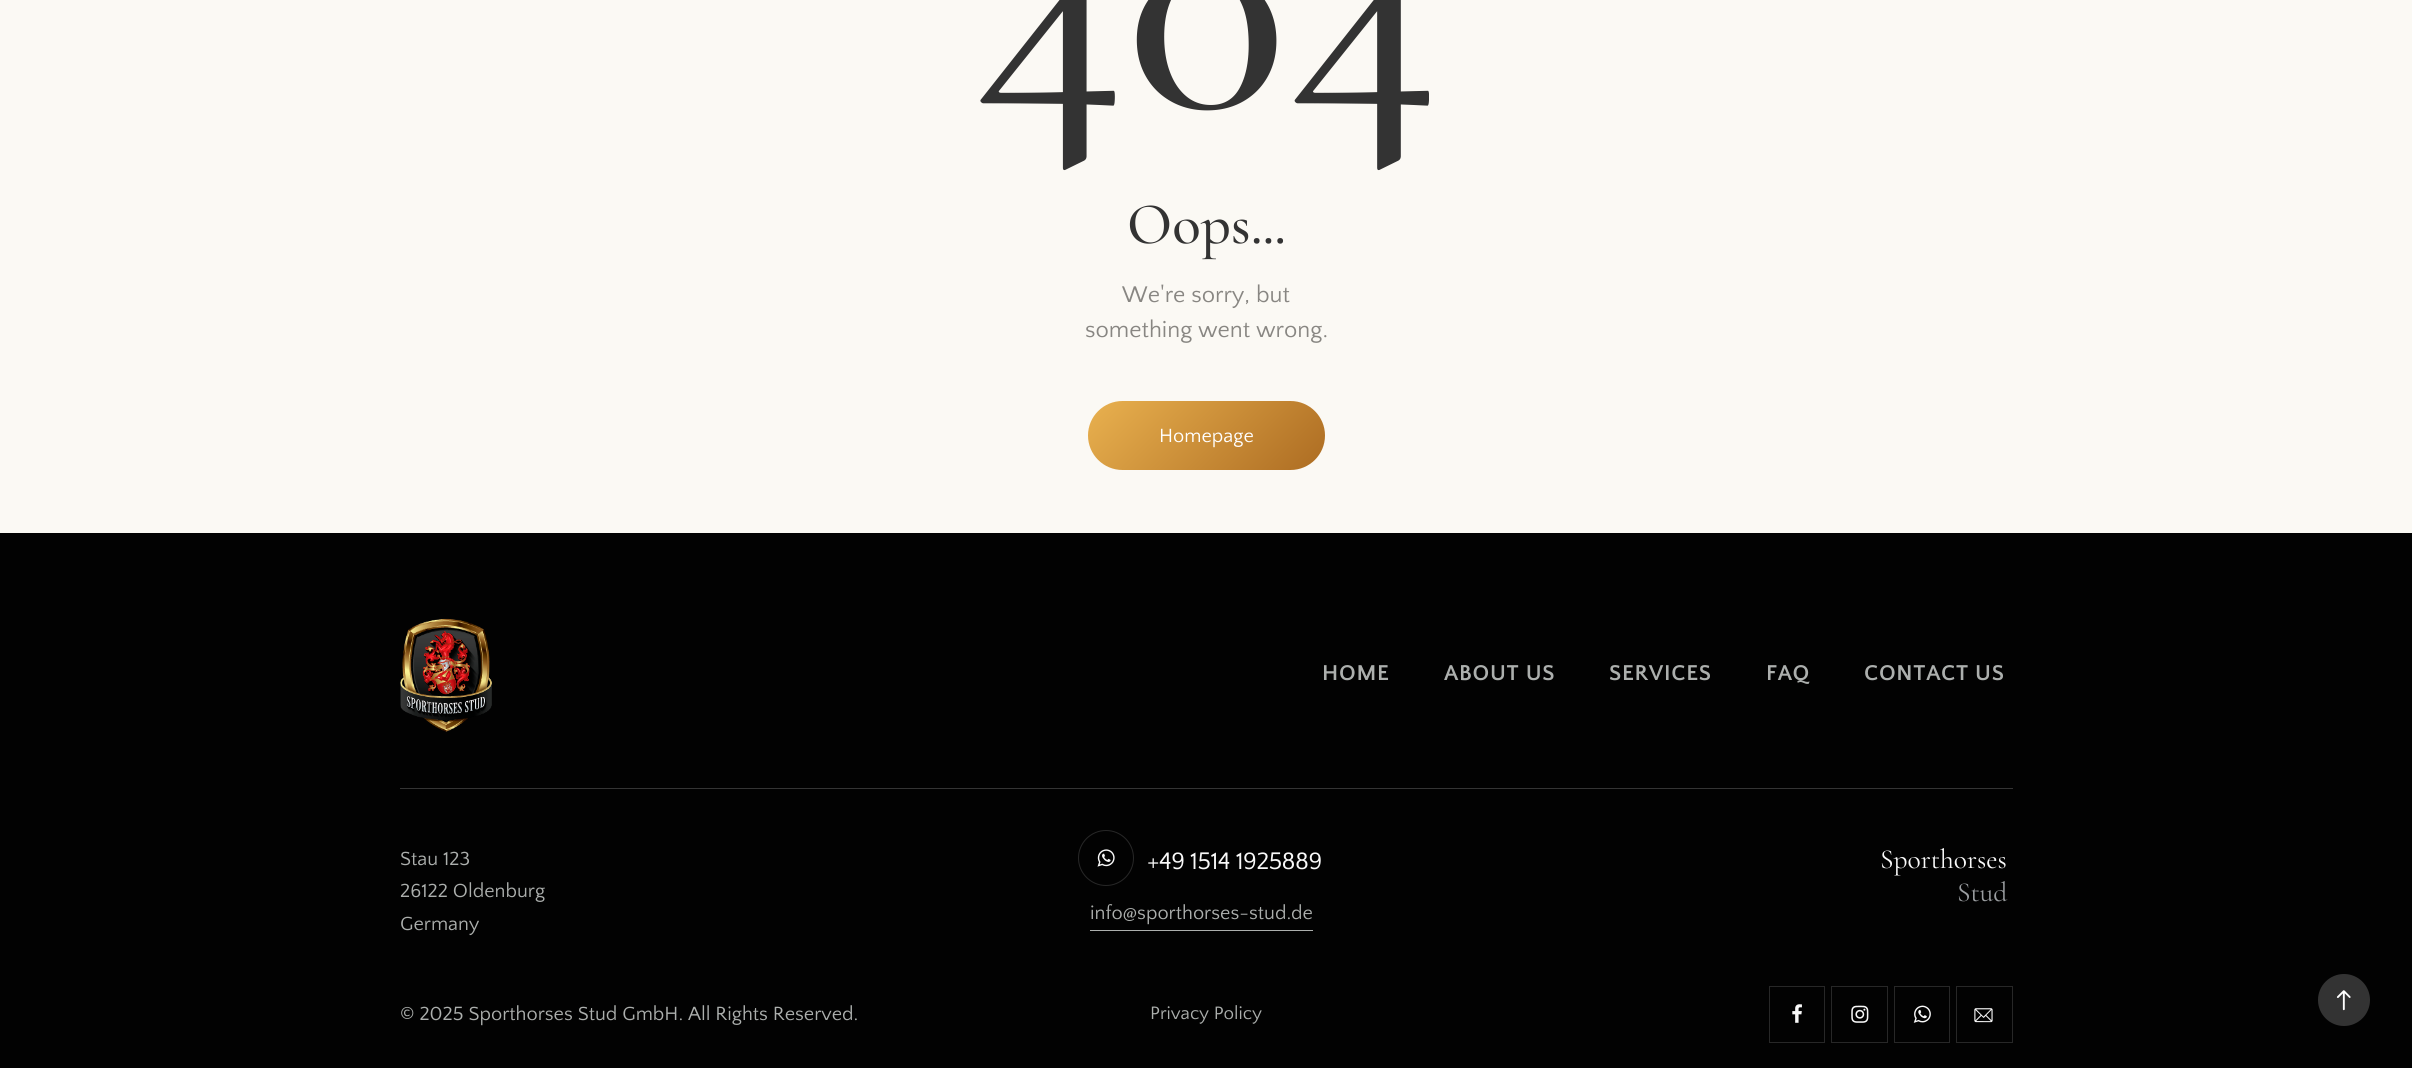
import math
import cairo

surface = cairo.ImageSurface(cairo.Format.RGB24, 2412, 1068)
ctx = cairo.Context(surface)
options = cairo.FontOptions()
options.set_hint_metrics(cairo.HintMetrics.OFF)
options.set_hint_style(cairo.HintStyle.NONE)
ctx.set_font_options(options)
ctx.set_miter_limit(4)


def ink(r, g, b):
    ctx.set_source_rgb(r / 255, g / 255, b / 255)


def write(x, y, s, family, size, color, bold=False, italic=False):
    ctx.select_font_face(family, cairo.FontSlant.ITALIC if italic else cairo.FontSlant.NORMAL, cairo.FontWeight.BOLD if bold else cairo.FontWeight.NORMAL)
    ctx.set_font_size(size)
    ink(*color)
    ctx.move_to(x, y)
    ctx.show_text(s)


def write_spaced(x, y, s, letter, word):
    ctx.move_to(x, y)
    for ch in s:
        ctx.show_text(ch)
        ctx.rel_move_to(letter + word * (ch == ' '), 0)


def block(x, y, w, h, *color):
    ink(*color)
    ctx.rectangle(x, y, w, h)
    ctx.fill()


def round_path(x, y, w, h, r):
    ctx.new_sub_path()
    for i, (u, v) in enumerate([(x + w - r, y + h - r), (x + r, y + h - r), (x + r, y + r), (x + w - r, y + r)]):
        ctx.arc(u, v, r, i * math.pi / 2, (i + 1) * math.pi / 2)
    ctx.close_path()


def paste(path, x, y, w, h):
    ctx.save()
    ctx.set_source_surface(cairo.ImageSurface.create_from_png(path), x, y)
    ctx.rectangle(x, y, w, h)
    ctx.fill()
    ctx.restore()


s1 = dict(family="Cormorant Garamond Medium", size=338, color=(51, 51, 51))
s2 = dict(family="Cormorant Garamond Medium", size=59, color=(51, 51, 51))
s3 = dict(family="Quattrocento Sans", size=23.75, color=(136, 134, 130))
s4 = dict(family="Quattrocento Sans", size=20, color=(255, 255, 255))
s5 = dict(family="Quattrocento Sans", size=20, color=(172, 175, 173))
s6 = dict(family="Cormorant Garamond", size=27.5, color=(249, 249, 249))
s7 = dict(family="Cormorant Garamond", size=27.5, color=(154, 157, 160))
s8 = dict(family="Quattrocento Sans", size=18.75, color=(172, 175, 173))

ink(251, 249, 244)
ctx.paint()
write(973, 106, "404", **s1)
write(1127, 243, "Oops...", **s2)
write(1122, 302, "We're sorry, but", **s3)
write(1085, 337, "something went wrong.", **s3)
gradient = cairo.LinearGradient(1130, 359, 1283, 512)
gradient.add_color_stop_rgba(0, 0.914, 0.694, 0.31, 1)
gradient.add_color_stop_rgba(1, 0.678, 0.424, 0.133, 1)
ctx.set_source(gradient)
round_path(1088, 401, 237, 69, 34.5)
ctx.fill()
write(1159, 442, "Homepage", **s4)
block(0, 533, 2412, 535, 2, 2, 2)
paste("pic1.png", 400, 618, 92, 114)
ctx.select_font_face("Quattrocento Sans", cairo.FontSlant.NORMAL, cairo.FontWeight.BOLD)
ctx.set_font_size(22.5)
ink(172, 175, 173)
write_spaced(1322, 680, "HOME", 0.75, 0)
write_spaced(1444, 680, "ABOUT US", 0.75, 0)
write_spaced(1609, 680, "SERVICES", 0.75, 0)
write_spaced(1766, 680, "FAQ", 0.75, 0)
write_spaced(1864, 680, "CONTACT US", 0.75, 0)
block(400, 788, 1613, 1, 52, 52, 52)
write(400, 865, "Stau 123", **s5)
write(400, 897, "26122 Oldenburg", **s5)
write(400, 930, "Germany", **s5)
ctx.new_path()
ctx.arc(1106, 858, 27.5, 0, 2 * math.pi)
ink(39, 39, 39)
ctx.set_line_width(1)
ctx.stroke()
paste("pic2.png", 1097, 849, 18, 18)
ctx.set_font_size(25)
ink(249, 249, 249)
write_spaced(1147, 869, "+49 1514 1925889", -0.5, 0)
write(1090, 919, "info@sporthorses-stud.de", **s5)
block(1090, 930, 223, 1, 172, 175, 173)
write(1880, 868, "Sporthorses", **s6)
write(1957, 901, "Stud", **s7)
write(400, 1020, "© 2025 Sporthorses Stud GmbH. All Rights Reserved.", **s5)
write(1150, 1019, "Privacy Policy", **s8)
ctx.rectangle(1769.5, 986.5, 55, 56)
ink(39, 39, 39)
ctx.stroke()
paste("pic3.png", 1792, 1004, 10, 19)
ctx.rectangle(1831.5, 986.5, 56, 56)
ctx.stroke()
paste("pic4.png", 1851, 1005, 18, 18)
ctx.rectangle(1894.5, 986.5, 55, 56)
ctx.stroke()
paste("pic5.png", 1913, 1005, 18, 18)
ctx.rectangle(1956.5, 986.5, 56, 56)
ctx.stroke()
paste("pic6.png", 1974, 1008, 19, 15)
ink(51, 51, 51)
ctx.arc(2344, 1000, 26, 0, 2 * math.pi)
ctx.fill()
paste("pic7.png", 2336, 990, 15, 21)
surface.write_to_png("screenshot.png")
